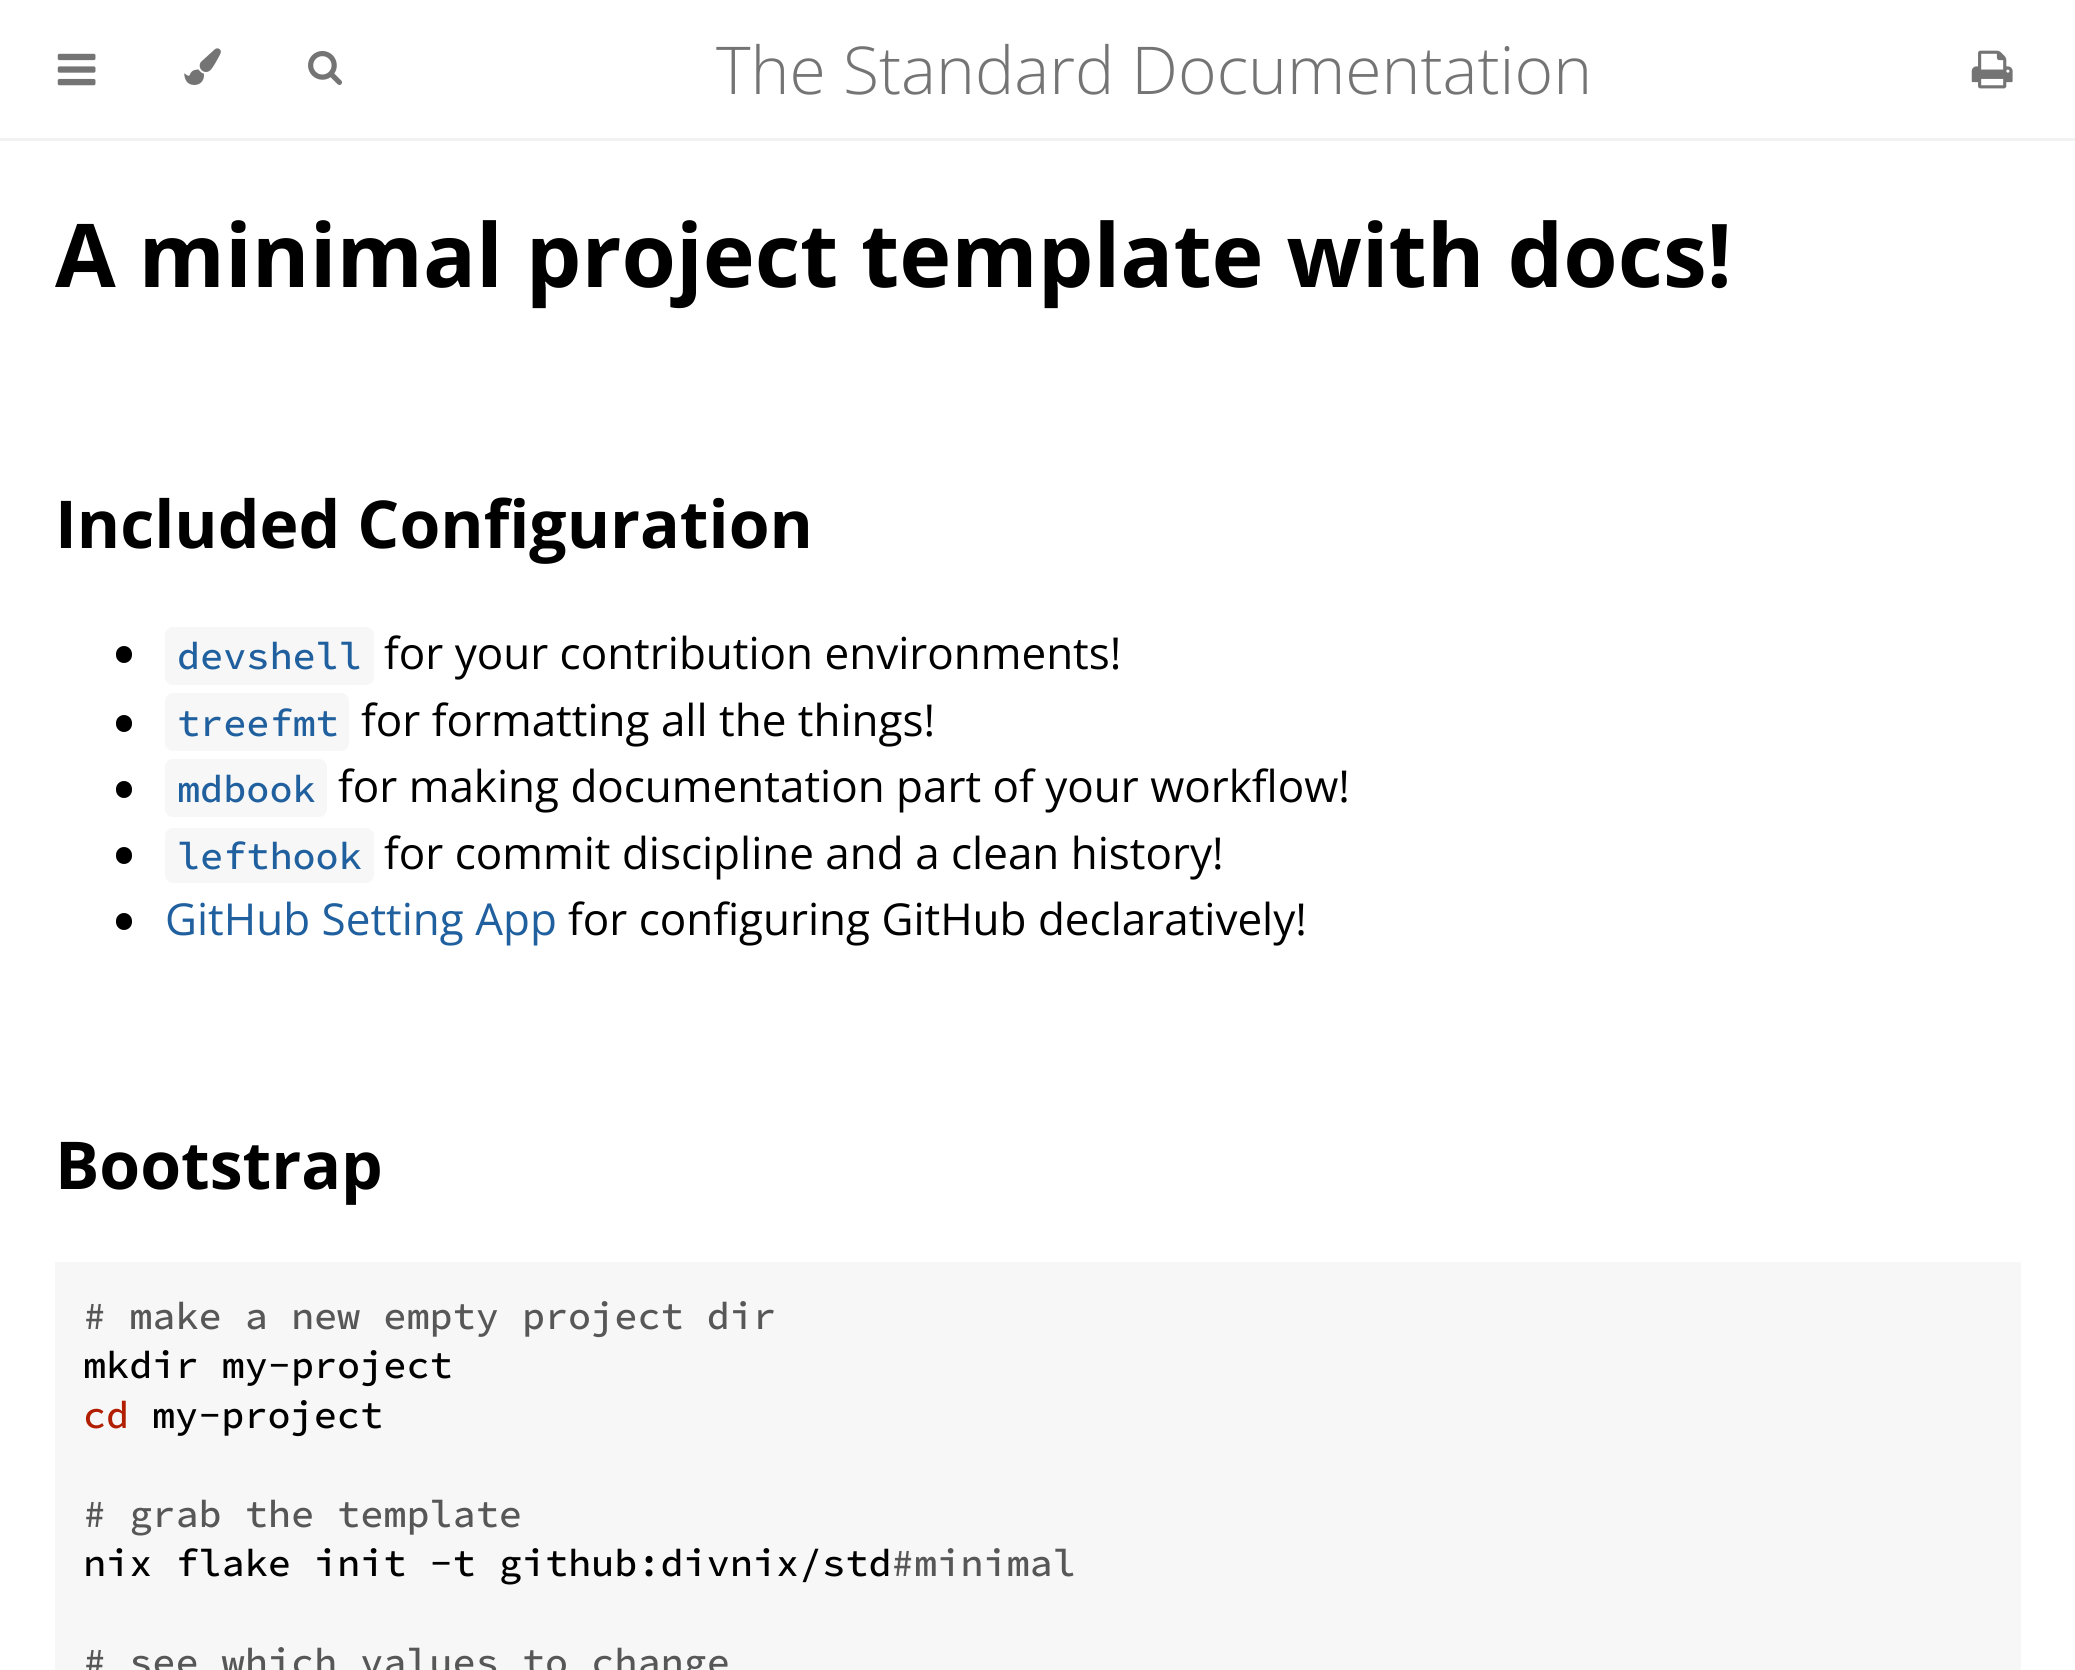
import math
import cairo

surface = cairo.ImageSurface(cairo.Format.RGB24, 2075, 1670)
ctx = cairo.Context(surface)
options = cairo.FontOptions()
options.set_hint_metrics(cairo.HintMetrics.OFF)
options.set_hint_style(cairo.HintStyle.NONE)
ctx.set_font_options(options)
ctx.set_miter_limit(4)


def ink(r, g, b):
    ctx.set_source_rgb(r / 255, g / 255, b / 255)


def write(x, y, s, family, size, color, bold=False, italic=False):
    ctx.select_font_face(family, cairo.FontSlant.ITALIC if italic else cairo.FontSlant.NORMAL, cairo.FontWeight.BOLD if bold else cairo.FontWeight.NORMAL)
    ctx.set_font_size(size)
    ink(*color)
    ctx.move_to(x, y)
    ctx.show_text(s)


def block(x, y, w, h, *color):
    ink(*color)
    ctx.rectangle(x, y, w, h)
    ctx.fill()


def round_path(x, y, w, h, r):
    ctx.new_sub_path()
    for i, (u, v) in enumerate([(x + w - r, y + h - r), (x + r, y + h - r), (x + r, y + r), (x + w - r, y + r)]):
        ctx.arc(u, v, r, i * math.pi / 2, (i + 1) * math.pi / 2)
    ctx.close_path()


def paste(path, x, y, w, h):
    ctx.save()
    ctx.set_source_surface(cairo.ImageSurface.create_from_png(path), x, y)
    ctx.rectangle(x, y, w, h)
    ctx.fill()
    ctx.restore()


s1 = dict(family="Open Sans Light", size=66, color=(116, 116, 116))
s2 = dict(family="Open Sans", size=88, color=(0, 0, 0), bold=True)
s3 = dict(family="Open Sans", size=66, color=(0, 0, 0), bold=True)
s4 = dict(family="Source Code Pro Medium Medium", size=38.5, color=(32, 96, 159))
s5 = dict(family="Open Sans", size=44, color=(0, 0, 0))
s6 = dict(family="Open Sans", size=44, color=(32, 96, 159))
s7 = dict(family="Source Code Pro Medium Medium", size=38.5, color=(87, 87, 87))
s8 = dict(family="Source Code Pro Medium Medium", size=38.5, color=(0, 0, 0))
s9 = dict(family="Source Code Pro Medium Medium", size=38.5, color=(178, 30, 0))

ink(255, 255, 255)
ctx.paint()
block(0, 138, 2075, 3, 242, 242, 242)
paste("pic1.png", 57, 53, 39, 33)
paste("pic2.png", 184, 48, 37, 37)
paste("pic3.png", 308, 50, 34, 35)
write(716, 94, "The Standard Documentation", **s1)
paste("pic4.png", 1971, 50, 42, 39)
write(55, 287, "A minimal project template with docs!", **s2)
write(55, 548, "Included Configuration", **s3)
round_path(116, 646, 16, 17, 8)
ctx.fill()
ink(246, 247, 246)
round_path(165, 627, 209, 58, 8)
ctx.fill()
write(177, 669, "devshell", **s4)
write(384, 669, "for your contribution environments!", **s5)
round_path(116, 715, 16, 17, 8)
ctx.fill()
ink(246, 247, 246)
round_path(165, 693, 184, 58, 8)
ctx.fill()
write(177, 736, "treefmt", **s4)
write(361, 736, "for formatting all the things!", **s5)
round_path(116, 781, 16, 17, 8)
ctx.fill()
ink(246, 247, 246)
round_path(165, 759, 162, 58, 8)
ctx.fill()
write(177, 802, "mdbook", **s4)
write(338, 802, "for making documentation part of your workflow!", **s5)
round_path(116, 847, 16, 17, 8)
ctx.fill()
ink(246, 247, 246)
round_path(165, 828, 209, 55, 8)
ctx.fill()
write(177, 869, "lefthook", **s4)
write(384, 869, "for commit discipline and a clean history!", **s5)
round_path(116, 913, 16, 17, 8)
ctx.fill()
write(165, 935, "GitHub Setting App", **s6)
write(568, 935, "for configuring GitHub declaratively!", **s5)
write(55, 1189, "Bootstrap", **s3)
block(55, 1262, 1966, 408, 246, 247, 246)
write(83, 1329, "# make a new empty project dir", **s7)
write(83, 1378, "mkdir my-project", **s8)
write(83, 1428, "cd", **s9)
write(152, 1428, "my-project", **s8)
write(83, 1527, "# grab the template", **s7)
write(83, 1576, "nix flake init -t github:divnix/std", **s8)
write(891, 1576, "#minimal", **s7)
write(83, 1675, "# see which values to change", **s7)
surface.write_to_png("screenshot.png")
